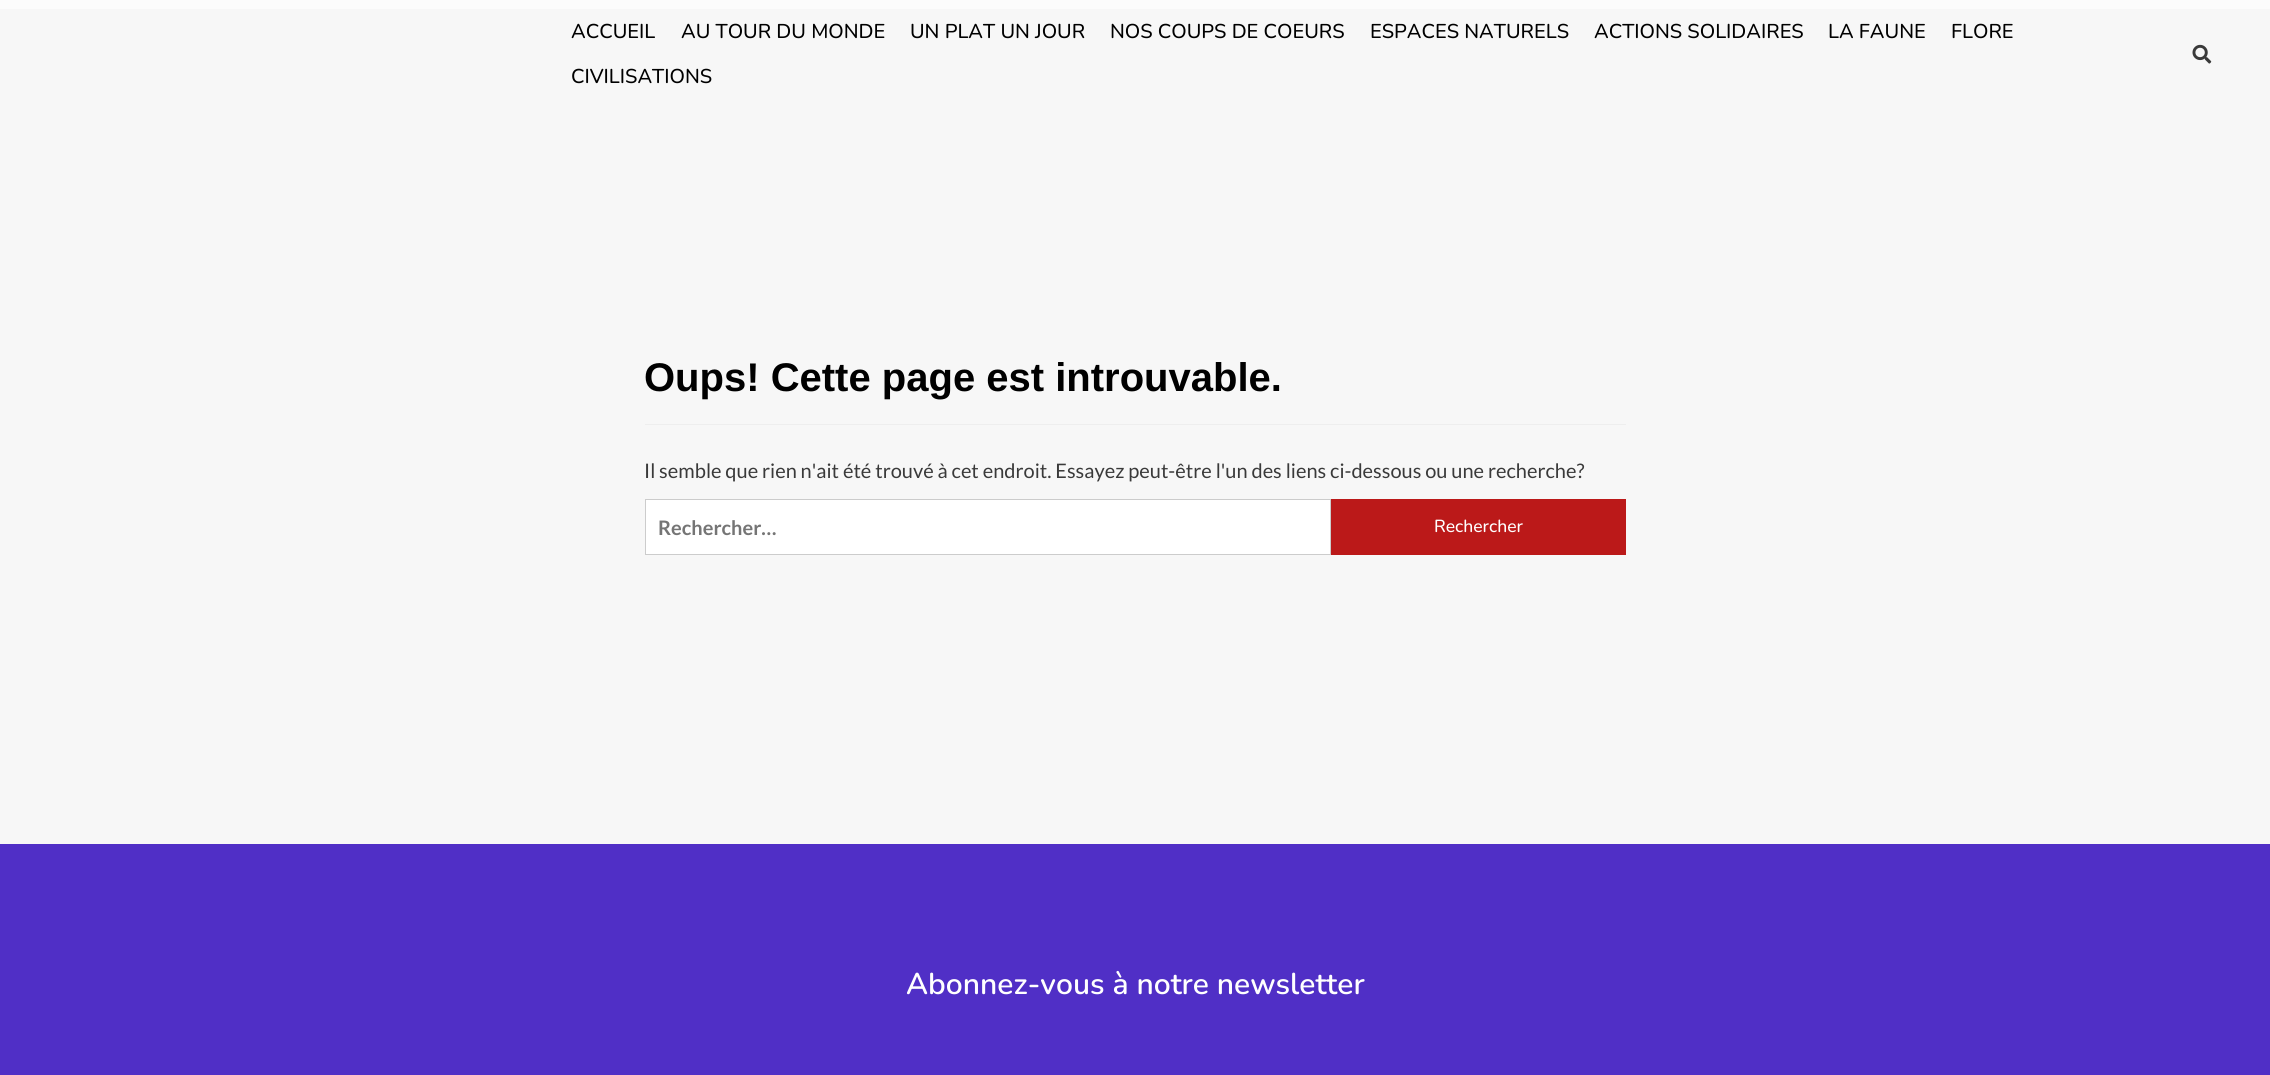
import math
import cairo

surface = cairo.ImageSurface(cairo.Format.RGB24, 2270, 1075)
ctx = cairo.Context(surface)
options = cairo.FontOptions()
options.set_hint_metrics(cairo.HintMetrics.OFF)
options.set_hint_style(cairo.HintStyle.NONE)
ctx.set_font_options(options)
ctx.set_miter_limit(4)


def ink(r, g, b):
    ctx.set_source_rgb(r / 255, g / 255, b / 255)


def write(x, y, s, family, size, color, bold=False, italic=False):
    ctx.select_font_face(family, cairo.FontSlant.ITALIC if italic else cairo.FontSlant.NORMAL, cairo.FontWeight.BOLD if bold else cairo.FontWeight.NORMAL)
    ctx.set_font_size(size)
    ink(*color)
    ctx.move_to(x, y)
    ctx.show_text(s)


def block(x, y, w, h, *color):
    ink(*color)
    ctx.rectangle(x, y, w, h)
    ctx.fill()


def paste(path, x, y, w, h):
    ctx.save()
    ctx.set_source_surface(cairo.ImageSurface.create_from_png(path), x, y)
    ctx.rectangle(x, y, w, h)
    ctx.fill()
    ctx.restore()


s1 = dict(family="Nunito Medium", size=20, color=(0, 0, 0))
s2 = dict(family="Liberation Sans", size=40, color=(0, 0, 0), bold=True)
s3 = dict(family="Lato", size=20, color=(58, 58, 58))
s4 = dict(family="Lato", size=20, color=(117, 117, 117), bold=True)
s5 = dict(family="Nunito Medium", size=17.5, color=(255, 255, 255))
s6 = dict(family="Nunito SemiBold", size=30, color=(255, 255, 255))

ink(247, 247, 247)
ctx.paint()
block(0, 0, 2270, 9, 252, 252, 252)
write(571, 38, "ACCUEIL", **s1)
write(681, 38, "AU TOUR DU MONDE", **s1)
write(910, 38, "UN PLAT UN JOUR", **s1)
write(1110, 38, "NOS COUPS DE COEURS", **s1)
write(1370, 38, "ESPACES NATURELS", **s1)
write(1594, 38, "ACTIONS SOLIDAIRES", **s1)
write(1828, 38, "LA FAUNE", **s1)
write(1951, 38, "FLORE", **s1)
write(571, 83, "CIVILISATIONS", **s1)
paste("pic1.png", 2192, 44, 20, 20)
block(645, 424, 981, 1, 238, 238, 238)
write(644, 391, "Oups! Cette page est introuvable.", **s2)
write(644, 478, "Il semble que rien n'ait été trouvé à cet endroit. Essayez peut-être l'un des liens ci-dessous ou une recherche?", **s3)
ink(255, 255, 255)
ctx.rectangle(645.5, 499.5, 685, 55)
ctx.fill_preserve()
ink(204, 204, 204)
ctx.set_line_width(1)
ctx.stroke()
write(658, 535, "Rechercher…", **s4)
block(1331, 499, 295, 56, 187, 25, 25)
write(1434, 532, "Rechercher", **s5)
block(0, 844, 2270, 231, 80, 47, 198)
write(906, 994, "Abonnez-vous à notre newsletter", **s6)
surface.write_to_png("screenshot.png")
